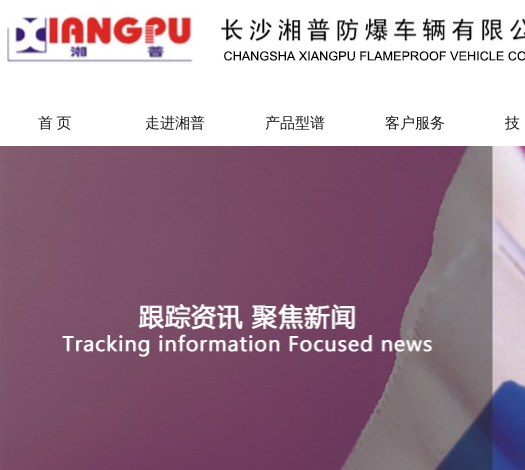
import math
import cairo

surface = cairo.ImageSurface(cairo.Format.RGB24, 525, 470)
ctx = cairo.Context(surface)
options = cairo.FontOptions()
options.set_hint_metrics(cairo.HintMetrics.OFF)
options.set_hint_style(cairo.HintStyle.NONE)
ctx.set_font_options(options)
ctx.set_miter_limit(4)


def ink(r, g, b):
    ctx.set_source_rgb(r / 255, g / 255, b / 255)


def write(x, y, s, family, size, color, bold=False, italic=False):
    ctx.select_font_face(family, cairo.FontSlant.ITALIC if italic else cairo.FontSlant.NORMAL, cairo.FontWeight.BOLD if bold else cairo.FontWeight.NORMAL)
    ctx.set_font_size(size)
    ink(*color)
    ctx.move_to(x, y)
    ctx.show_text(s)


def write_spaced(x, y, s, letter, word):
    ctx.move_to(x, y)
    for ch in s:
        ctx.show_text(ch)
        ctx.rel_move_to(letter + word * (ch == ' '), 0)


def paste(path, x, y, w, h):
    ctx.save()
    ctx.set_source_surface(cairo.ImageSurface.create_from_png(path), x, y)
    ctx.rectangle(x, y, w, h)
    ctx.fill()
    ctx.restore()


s1 = dict(family="WenQuanYi Zen Hei Medium", size=15, color=(25, 25, 25))

ink(255, 255, 255)
ctx.paint()
paste("pic1.png", 3, 11, 522, 53)
ctx.select_font_face("WenQuanYi Zen Hei Medium")
ctx.set_font_size(15)
ink(25, 25, 25)
write_spaced(38, 128, "首 页", 0, -1)
write(145, 128, "走进湘普", **s1)
write(265, 128, "产品型谱", **s1)
write(385, 128, "客户服务", **s1)
write(505, 128, "技", **s1)
paste("pic2.png", 0, 146, 525, 324)
surface.write_to_png("screenshot.png")
